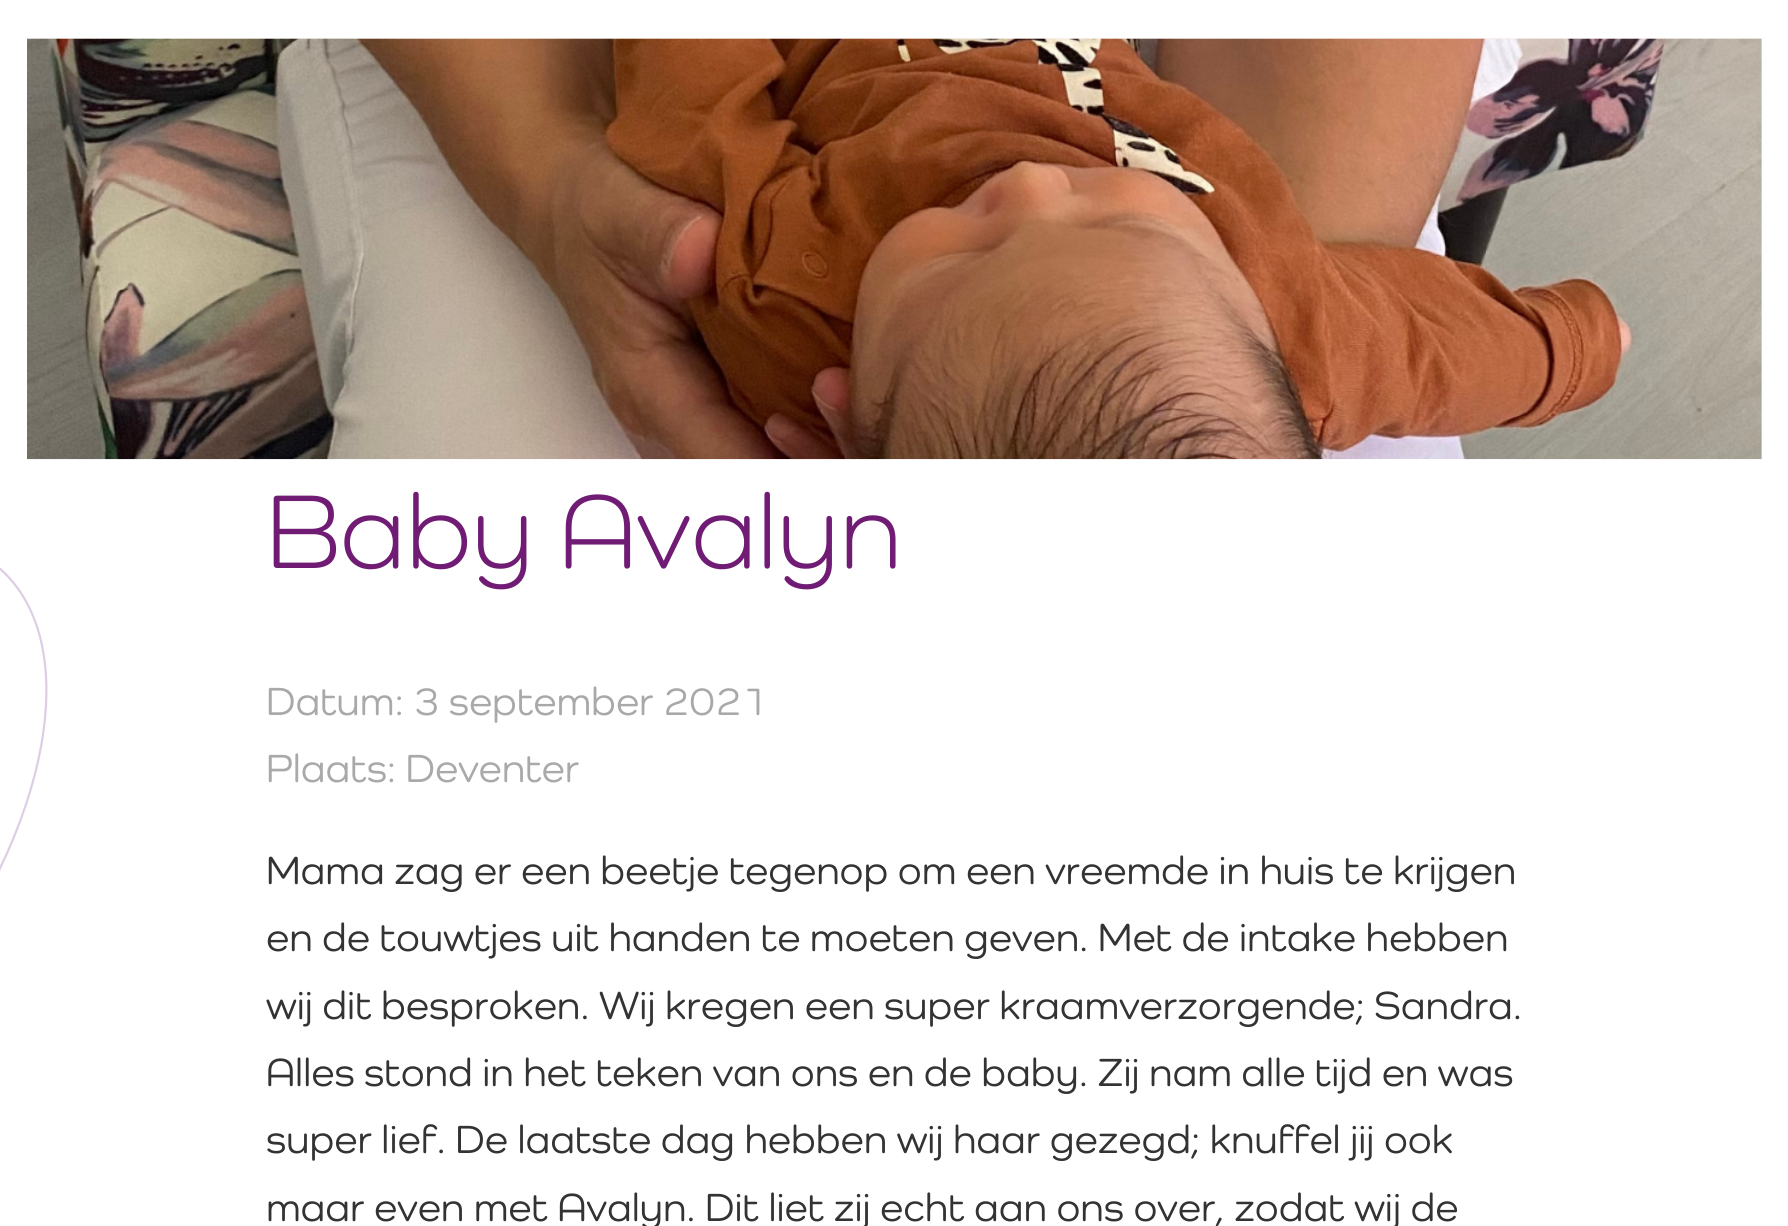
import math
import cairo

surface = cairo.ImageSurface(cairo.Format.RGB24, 1788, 1226)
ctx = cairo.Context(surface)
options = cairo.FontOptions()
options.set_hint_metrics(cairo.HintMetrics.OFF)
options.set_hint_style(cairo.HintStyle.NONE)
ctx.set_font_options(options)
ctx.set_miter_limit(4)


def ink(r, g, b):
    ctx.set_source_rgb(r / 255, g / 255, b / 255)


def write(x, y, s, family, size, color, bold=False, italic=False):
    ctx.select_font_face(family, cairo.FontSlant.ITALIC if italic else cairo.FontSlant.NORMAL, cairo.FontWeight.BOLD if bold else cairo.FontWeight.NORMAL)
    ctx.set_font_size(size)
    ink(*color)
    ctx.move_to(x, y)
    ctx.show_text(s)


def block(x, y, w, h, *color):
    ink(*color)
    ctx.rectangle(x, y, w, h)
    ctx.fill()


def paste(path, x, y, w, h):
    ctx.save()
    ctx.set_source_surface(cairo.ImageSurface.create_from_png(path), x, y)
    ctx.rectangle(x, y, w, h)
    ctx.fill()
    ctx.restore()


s1 = dict(family="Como", size=108, color=(112, 28, 116))
s2 = dict(family="Como Medium", size=40.5, color=(169, 169, 169))
s3 = dict(family="Como Medium", size=40.5, color=(51, 51, 51))

ink(255, 255, 255)
ctx.paint()
block(27, 38, 1735, 421, 247, 242, 237)
paste("pic1.png", 27, 38, 1735, 422)
write(266, 568, "Baby Avalyn", **s1)
ctx.new_path()
ctx.move_to(-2, 567)
ctx.curve_to(-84.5, 496.5, -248, 551, -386, 686.5)
ctx.curve_to(-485, 520, -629, 426.5, -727, 473.5)
ctx.curve_to(-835.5, 525.5, -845, 732, -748, 935)
ctx.curve_to(-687, 1062.5, -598.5, 1157.5, -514, 1198.5)
ctx.curve_to(-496.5, 1209, -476.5, 1215, -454.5, 1217.5)
ctx.curve_to(-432.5, 1221, -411.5, 1220, -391.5, 1214)
ctx.curve_to(-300, 1196, -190, 1126.5, -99, 1019)
ctx.curve_to(47, 847.5, 90, 645, -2, 567)
ctx.close_path()
ink(220, 206, 228)
ctx.set_line_width(2.2)
ctx.stroke()
write(266, 715, "Datum: 3 september 2021", **s2)
write(266, 782, "Plaats: Deventer", **s2)
write(266, 884, "Mama zag er een beetje tegenop om een vreemde in huis te krijgen", **s3)
write(266, 951, "en de touwtjes uit handen te moeten geven. Met de intake hebben", **s3)
write(266, 1019, "wij dit besproken. Wij kregen een super kraamverzorgende; Sandra.", **s3)
write(266, 1086, "Alles stond in het teken van ons en de baby. Zij nam alle tijd en was", **s3)
write(266, 1153, "super lief. De laatste dag hebben wij haar gezegd; knuffel jij ook", **s3)
write(266, 1221, "maar even met Avalyn. Dit liet zij echt aan ons over, zodat wij de", **s3)
surface.write_to_png("screenshot.png")
